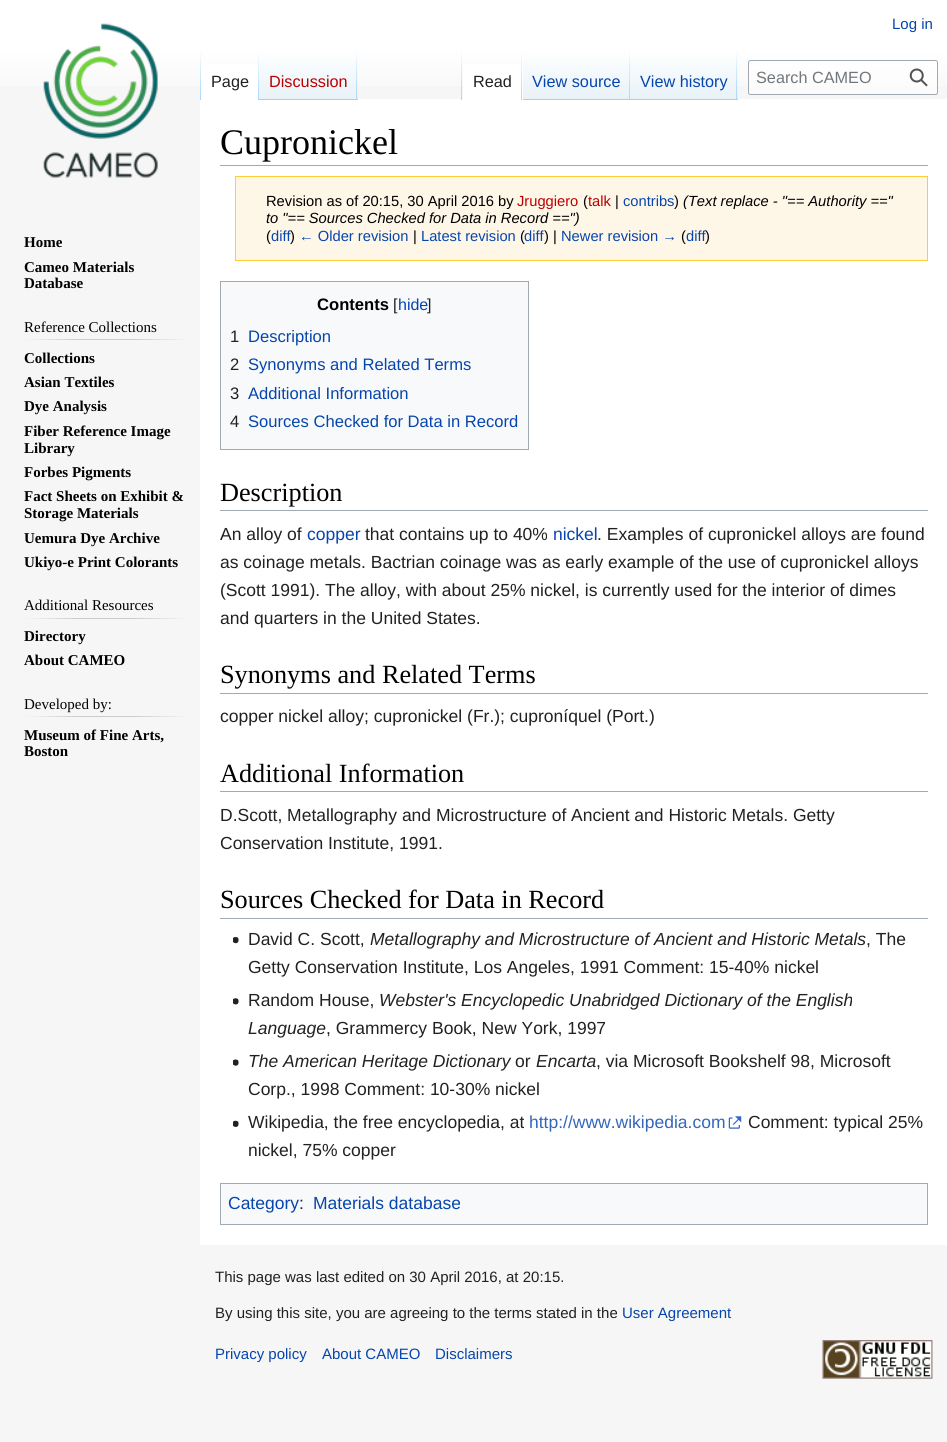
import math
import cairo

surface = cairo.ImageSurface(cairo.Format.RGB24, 947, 1442)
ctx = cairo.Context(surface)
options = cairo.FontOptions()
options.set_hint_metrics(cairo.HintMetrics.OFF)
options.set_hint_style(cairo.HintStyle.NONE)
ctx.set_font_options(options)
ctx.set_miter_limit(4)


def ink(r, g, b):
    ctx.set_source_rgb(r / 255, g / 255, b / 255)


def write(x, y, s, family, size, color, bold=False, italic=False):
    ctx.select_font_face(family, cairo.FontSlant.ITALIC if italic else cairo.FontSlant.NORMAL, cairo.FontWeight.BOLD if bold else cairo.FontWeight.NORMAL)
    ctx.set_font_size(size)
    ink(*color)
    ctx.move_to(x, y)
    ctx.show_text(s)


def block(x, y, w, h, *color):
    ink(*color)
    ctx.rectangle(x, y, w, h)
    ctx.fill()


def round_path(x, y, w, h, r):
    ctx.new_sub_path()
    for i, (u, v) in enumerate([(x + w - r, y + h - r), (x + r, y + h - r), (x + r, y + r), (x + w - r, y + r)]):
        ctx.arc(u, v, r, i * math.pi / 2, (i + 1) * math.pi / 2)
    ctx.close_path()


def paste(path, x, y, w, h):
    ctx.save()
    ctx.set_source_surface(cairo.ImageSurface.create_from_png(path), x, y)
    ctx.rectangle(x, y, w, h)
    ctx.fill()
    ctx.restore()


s1 = dict(family="Liberation Sans", size=15, color=(6, 69, 173))
s2 = dict(family="Liberation Sans", size=16.25, color=(32, 33, 34))
s3 = dict(family="Liberation Sans", size=16.25, color=(186, 0, 0))
s4 = dict(family="Liberation Sans", size=16.25, color=(6, 69, 173))
s5 = dict(family="Liberation Sans", size=16.25, color=(114, 119, 125))
s6 = dict(family="Liberation Serif", size=15, color=(0, 0, 0), bold=True)
s7 = dict(family="Liberation Serif", size=15, color=(0, 0, 0))
s8 = dict(family="Liberation Serif", size=36, color=(0, 0, 0))
s9 = dict(family="Liberation Sans", size=14.7, color=(0, 0, 0))
s10 = dict(family="Liberation Sans", size=14.7, color=(186, 0, 0))
s11 = dict(family="Liberation Sans", size=14.7, color=(6, 69, 173))
s12 = dict(family="Liberation Sans", size=14.7, color=(0, 0, 0), italic=True)
s13 = dict(family="Liberation Sans", size=16.6, color=(0, 0, 0), bold=True)
s14 = dict(family="Liberation Sans", size=16, color=(32, 33, 34))
s15 = dict(family="Liberation Sans", size=16, color=(6, 69, 173))
s16 = dict(family="Liberation Sans", size=16.6, color=(32, 33, 34))
s17 = dict(family="Liberation Sans", size=16.6, color=(6, 69, 173))
s18 = dict(family="Liberation Serif", size=26.25, color=(0, 0, 0))
s19 = dict(family="Liberation Sans", size=17.5, color=(32, 33, 34))
s20 = dict(family="Liberation Sans", size=17.5, color=(6, 69, 173))
s21 = dict(family="Liberation Sans", size=17.5, color=(32, 33, 34), italic=True)
s22 = dict(family="Liberation Sans", size=17.5, color=(51, 102, 187))
s23 = dict(family="Liberation Sans", size=15, color=(32, 33, 34))

ink(246, 246, 246)
ctx.paint()
gradient = cairo.LinearGradient(474, 0, 474, 100)
gradient.add_color_stop_rgba(0.5, 1, 1, 1, 1)
gradient.add_color_stop_rgba(1, 0.965, 0.965, 0.965, 1)
ctx.set_source(gradient)
ctx.rectangle(0, 0, 947, 86)
ctx.fill()
write(892, 29, "Log in", **s1)
block(200, 99, 747, 1146, 255, 255, 255)
gradient = cairo.LinearGradient(201, 50, 201, 100)
gradient.add_color_stop_rgba(0, 0.655, 0.843, 0.976, 0)
gradient.add_color_stop_rgba(1, 0.655, 0.843, 0.976, 1)
ctx.set_source(gradient)
ctx.rectangle(200, 50, 1, 50)
ctx.fill()
block(201, 64, 57, 35, 255, 255, 255)
gradient = cairo.LinearGradient(258, 50, 258, 100)
gradient.add_color_stop_rgba(0, 1, 1, 1, 1)
gradient.add_color_stop_rgba(1, 0.655, 0.843, 0.976, 1)
ctx.set_source(gradient)
ctx.rectangle(258, 50, 1, 50)
ctx.fill()
write(211, 87, "Page", **s2)
gradient = cairo.LinearGradient(308, 100, 308, 50)
gradient.add_color_stop_rgba(0, 0.467, 0.757, 0.965, 1)
gradient.add_color_stop_rgba(0.03, 0.91, 0.949, 0.973, 1)
gradient.add_color_stop_rgba(1, 1, 1, 1, 1)
ctx.set_source(gradient)
ctx.rectangle(259, 57, 99, 43)
ctx.fill()
gradient = cairo.LinearGradient(357, 50, 357, 100)
gradient.add_color_stop_rgba(0, 0.655, 0.843, 0.976, 0)
gradient.add_color_stop_rgba(1, 0.655, 0.843, 0.976, 1)
ctx.set_source(gradient)
ctx.rectangle(356, 50, 1, 50)
ctx.fill()
write(269, 87, "Discussion", **s3)
gradient = cairo.LinearGradient(462, 50, 462, 100)
gradient.add_color_stop_rgba(0, 0.655, 0.843, 0.976, 0)
gradient.add_color_stop_rgba(1, 0.655, 0.843, 0.976, 1)
ctx.set_source(gradient)
ctx.rectangle(461, 50, 1, 50)
ctx.fill()
block(463, 64, 60, 35, 255, 255, 255)
gradient = cairo.LinearGradient(522, 50, 522, 100)
gradient.add_color_stop_rgba(0, 1, 1, 1, 1)
gradient.add_color_stop_rgba(1, 0.655, 0.843, 0.976, 1)
ctx.set_source(gradient)
ctx.rectangle(521, 50, 1, 50)
ctx.fill()
write(473, 87, "Read", **s2)
gradient = cairo.LinearGradient(576, 100, 576, 50)
gradient.add_color_stop_rgba(0, 0.467, 0.757, 0.965, 1)
gradient.add_color_stop_rgba(0.03, 0.91, 0.949, 0.973, 1)
gradient.add_color_stop_rgba(1, 1, 1, 1, 1)
ctx.set_source(gradient)
ctx.rectangle(523, 57, 107, 43)
ctx.fill()
gradient = cairo.LinearGradient(629, 50, 629, 100)
gradient.add_color_stop_rgba(0, 0.655, 0.843, 0.976, 0)
gradient.add_color_stop_rgba(1, 0.655, 0.843, 0.976, 1)
ctx.set_source(gradient)
ctx.rectangle(629, 50, 1, 50)
ctx.fill()
write(532, 87, "View source", **s4)
gradient = cairo.LinearGradient(684, 100, 684, 50)
gradient.add_color_stop_rgba(0, 0.467, 0.757, 0.965, 1)
gradient.add_color_stop_rgba(0.03, 0.91, 0.949, 0.973, 1)
gradient.add_color_stop_rgba(1, 1, 1, 1, 1)
ctx.set_source(gradient)
ctx.rectangle(630, 57, 108, 43)
ctx.fill()
gradient = cairo.LinearGradient(737, 50, 737, 100)
gradient.add_color_stop_rgba(0, 0.655, 0.843, 0.976, 0)
gradient.add_color_stop_rgba(1, 0.655, 0.843, 0.976, 1)
ctx.set_source(gradient)
ctx.rectangle(736, 50, 1, 50)
ctx.fill()
write(640, 87, "View history", **s4)
ctx.set_source_rgba(1, 1, 1, 0.5)
round_path(748.5, 60.5, 189, 34, 2)
ctx.fill_preserve()
ink(162, 169, 177)
ctx.set_line_width(1)
ctx.stroke()
write(756, 83, "Search CAMEO", **s5)
paste("pic1.png", 909, 68, 19, 19)
paste("pic2.png", 43, 23, 115, 155)
write(24, 247, "Home", **s6)
write(24, 272, "Cameo Materials", **s6)
write(24, 288, "Database", **s6)
gradient = cairo.LinearGradient(24, 339, 188, 339)
gradient.add_color_stop_rgba(0, 0.965, 0.965, 0.965, 1)
gradient.add_color_stop_rgba(0.33, 0.784, 0.8, 0.82, 1)
gradient.add_color_stop_rgba(0.66, 0.784, 0.8, 0.82, 1)
gradient.add_color_stop_rgba(1, 0.965, 0.965, 0.965, 1)
ctx.set_source(gradient)
ctx.rectangle(24, 339, 164, 1)
ctx.fill()
write(24, 332, "Reference Collections", **s7)
write(24, 363, "Collections", **s6)
write(24, 387, "Asian Textiles", **s6)
write(24, 411, "Dye Analysis", **s6)
write(24, 436, "Fiber Reference Image", **s6)
write(24, 453, "Library", **s6)
write(24, 477, "Forbes Pigments", **s6)
write(24, 501, "Fact Sheets on Exhibit &", **s6)
write(24, 518, "Storage Materials", **s6)
write(24, 543, "Uemura Dye Archive", **s6)
write(24, 567, "Ukiyo-e Print Colorants", **s6)
gradient = cairo.LinearGradient(24, 618, 188, 618)
gradient.add_color_stop_rgba(0, 0.965, 0.965, 0.965, 1)
gradient.add_color_stop_rgba(0.33, 0.784, 0.8, 0.82, 1)
gradient.add_color_stop_rgba(0.66, 0.784, 0.8, 0.82, 1)
gradient.add_color_stop_rgba(1, 0.965, 0.965, 0.965, 1)
ctx.set_source(gradient)
ctx.rectangle(24, 618, 164, 1)
ctx.fill()
write(24, 610, "Additional Resources", **s7)
write(24, 641, "Directory", **s6)
write(24, 665, "About CAMEO", **s6)
gradient = cairo.LinearGradient(24, 717, 188, 717)
gradient.add_color_stop_rgba(0, 0.965, 0.965, 0.965, 1)
gradient.add_color_stop_rgba(0.33, 0.784, 0.8, 0.82, 1)
gradient.add_color_stop_rgba(0.66, 0.784, 0.8, 0.82, 1)
gradient.add_color_stop_rgba(1, 0.965, 0.965, 0.965, 1)
ctx.set_source(gradient)
ctx.rectangle(24, 716, 164, 1)
ctx.fill()
write(24, 709, "Developed by:", **s7)
write(24, 740, "Museum of Fine Arts,", **s6)
write(24, 756, "Boston", **s6)
block(220, 165, 708, 1, 162, 169, 177)
write(220, 154, "Cupronickel", **s8)
ink(254, 246, 231)
ctx.rectangle(235.5, 176.5, 692, 84)
ctx.fill_preserve()
ink(255, 204, 51)
ctx.stroke()
write(266, 206, "Revision as of 20:15, 30 April 2016 by", **s9)
write(517, 206, "Jruggiero", **s10)
write(583, 206, "(", **s9)
write(588, 206, "talk", **s10)
write(615, 206, "|", **s9)
write(623, 206, "contribs", **s11)
write(674, 206, ")", **s9)
write(683, 206, "(Text replace - \"== Authority ==\"", **s12)
write(266, 223, "to \"== Sources Checked for Data in Record ==\")", **s12)
write(266, 241, "(", **s9)
write(271, 241, "diff", **s11)
write(290, 241, ")", **s9)
write(299, 241, "← Older revision", **s11)
write(413, 241, "|", **s9)
write(421, 241, "Latest revision", **s11)
write(520, 241, "(", **s9)
write(524, 241, "diff", **s11)
write(544, 241, ") |", **s9)
write(561, 241, "Newer revision →", **s11)
write(681, 241, "(", **s9)
write(686, 241, "diff", **s11)
write(705, 241, ")", **s9)
ink(248, 249, 250)
ctx.rectangle(220.5, 281.5, 308, 168)
ctx.fill_preserve()
ink(162, 169, 177)
ctx.stroke()
write(317, 310, "Contents", **s13)
write(393, 310, "[", **s14)
write(398, 310, "hide", **s15)
write(427, 310, "]", **s14)
write(230, 342, "1", **s16)
write(248, 342, "Description", **s17)
write(230, 370, "2", **s16)
write(248, 370, "Synonyms and Related Terms", **s17)
write(230, 399, "3", **s16)
write(248, 399, "Additional Information", **s17)
write(230, 427, "4", **s16)
write(248, 427, "Sources Checked for Data in Record", **s17)
block(220, 510, 708, 1, 162, 169, 177)
write(220, 501, "Description", **s18)
write(220, 540, "An alloy of", **s19)
write(307, 540, "copper", **s20)
write(365, 540, "that contains up to 40%", **s19)
write(553, 540, "nickel", **s20)
write(597, 540, ". Examples of cupronickel alloys are found", **s19)
write(220, 568, "as coinage metals. Bactrian coinage was as early example of the use of cupronickel alloys", **s19)
write(220, 596, "(Scott 1991). The alloy, with about 25% nickel, is currently used for the interior of dimes", **s19)
write(220, 624, "and quarters in the United States.", **s19)
block(220, 693, 708, 1, 162, 169, 177)
write(220, 683, "Synonyms and Related Terms", **s18)
write(220, 722, "copper nickel alloy; cupronickel (Fr.); cuproníquel (Port.)", **s19)
block(220, 791, 708, 1, 162, 169, 177)
write(220, 782, "Additional Information", **s18)
write(220, 821, "D.Scott, Metallography and Microstructure of Ancient and Historic Metals. Getty", **s19)
write(220, 849, "Conservation Institute, 1991.", **s19)
block(220, 918, 708, 1, 162, 169, 177)
write(220, 908, "Sources Checked for Data in Record", **s18)
paste("pic3.png", 233, 937, 6, 7)
write(248, 945, "David C. Scott,", **s19)
write(370, 945, "Metallography and Microstructure of Ancient and Historic Metals", **s21)
write(866, 945, ", The", **s19)
write(248, 973, "Getty Conservation Institute, Los Angeles, 1991 Comment: 15-40% nickel", **s19)
paste("pic4.png", 233, 998, 6, 7)
write(248, 1006, "Random House,", **s19)
write(379, 1006, "Webster's Encyclopedic Unabridged Dictionary of the English", **s21)
write(248, 1034, "Language", **s21)
write(326, 1034, ", Grammercy Book, New York, 1997", **s19)
paste("pic5.png", 233, 1059, 6, 7)
write(248, 1067, "The American Heritage Dictionary", **s21)
write(515, 1067, "or", **s19)
write(536, 1067, "Encarta", **s21)
write(596, 1067, ", via Microsoft Bookshelf 98, Microsoft", **s19)
write(248, 1095, "Corp., 1998 Comment: 10-30% nickel", **s19)
paste("pic6.png", 233, 1120, 6, 7)
write(248, 1128, "Wikipedia, the free encyclopedia, at", **s19)
write(529, 1128, "http://www.wikipedia.com", **s22)
paste("pic7.png", 728, 1116, 14, 13)
write(748, 1128, "Comment: typical 25%", **s19)
write(248, 1156, "nickel, 75% copper", **s19)
ink(248, 249, 250)
ctx.rectangle(220.5, 1183.5, 707, 41)
ctx.fill_preserve()
ink(162, 169, 177)
ctx.stroke()
write(228, 1209, "Category", **s20)
write(299, 1209, ":", **s19)
write(313, 1209, "Materials database", **s20)
write(215, 1282, "This page was last edited on 30 April 2016, at 20:15.", **s23)
write(215, 1318, "By using this site, you are agreeing to the terms stated in the", **s23)
write(622, 1318, "User Agreement", **s1)
write(215, 1359, "Privacy policy", **s1)
write(322, 1359, "About CAMEO", **s1)
write(435, 1359, "Disclaimers", **s1)
paste("pic8.png", 822, 1340, 111, 39)
surface.write_to_png("screenshot.png")
